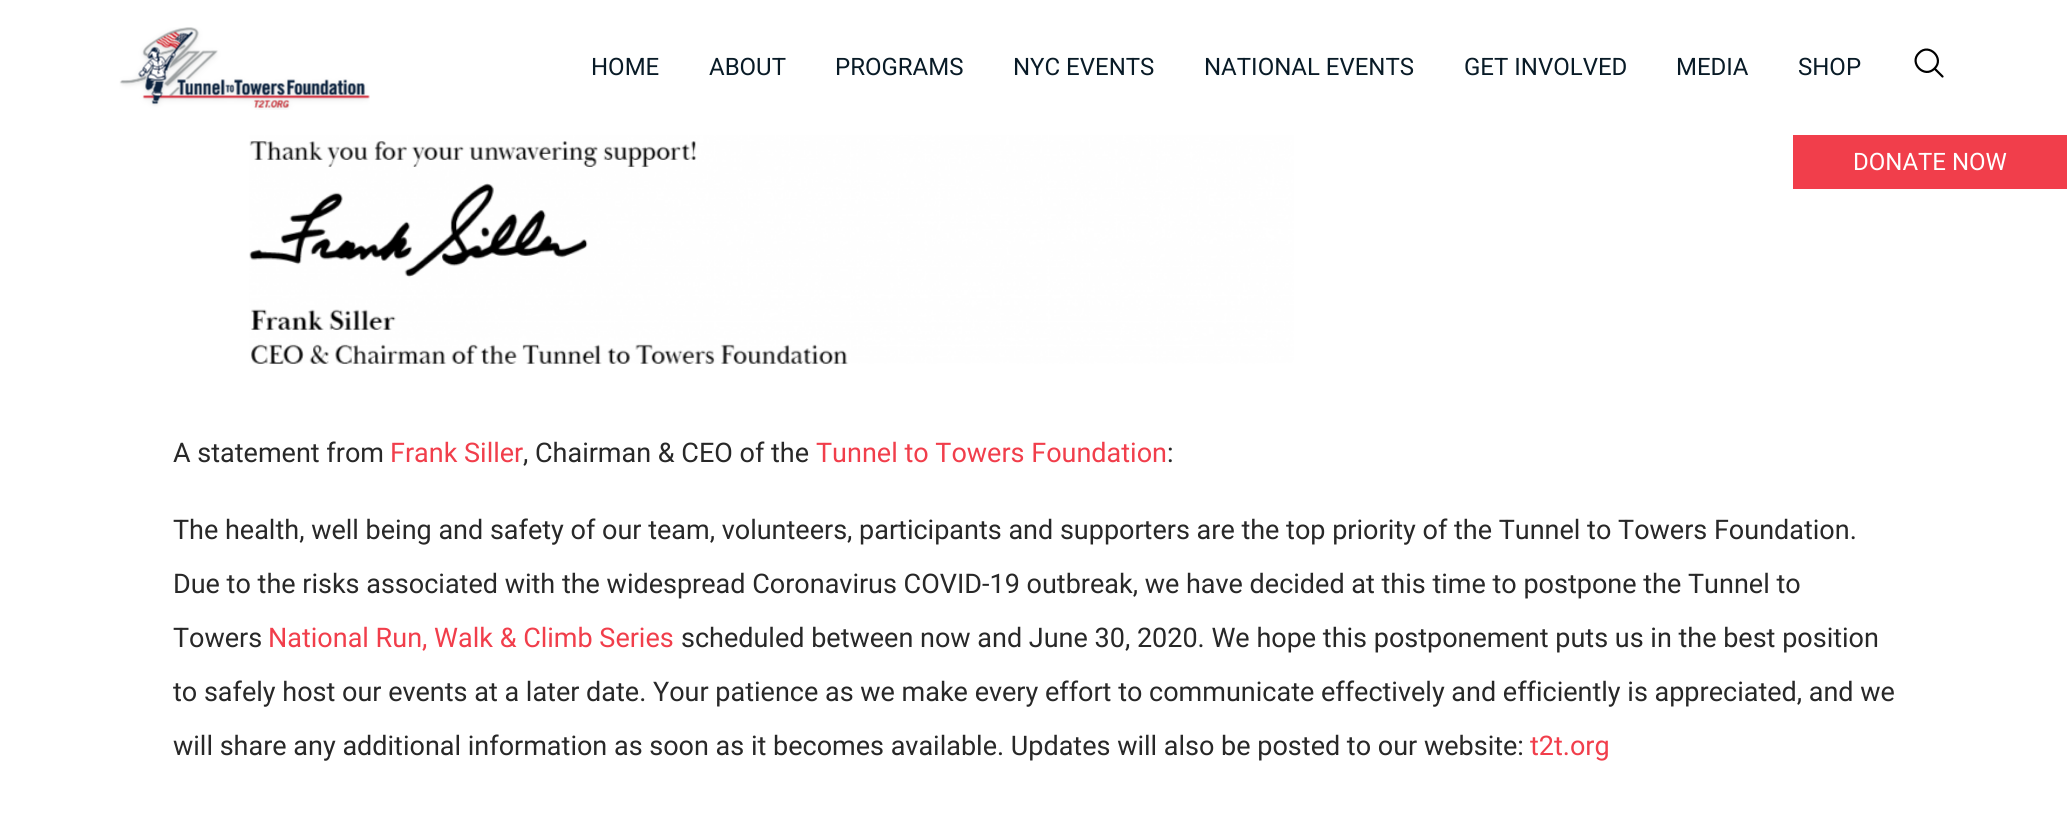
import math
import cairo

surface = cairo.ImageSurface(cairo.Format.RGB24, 2067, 820)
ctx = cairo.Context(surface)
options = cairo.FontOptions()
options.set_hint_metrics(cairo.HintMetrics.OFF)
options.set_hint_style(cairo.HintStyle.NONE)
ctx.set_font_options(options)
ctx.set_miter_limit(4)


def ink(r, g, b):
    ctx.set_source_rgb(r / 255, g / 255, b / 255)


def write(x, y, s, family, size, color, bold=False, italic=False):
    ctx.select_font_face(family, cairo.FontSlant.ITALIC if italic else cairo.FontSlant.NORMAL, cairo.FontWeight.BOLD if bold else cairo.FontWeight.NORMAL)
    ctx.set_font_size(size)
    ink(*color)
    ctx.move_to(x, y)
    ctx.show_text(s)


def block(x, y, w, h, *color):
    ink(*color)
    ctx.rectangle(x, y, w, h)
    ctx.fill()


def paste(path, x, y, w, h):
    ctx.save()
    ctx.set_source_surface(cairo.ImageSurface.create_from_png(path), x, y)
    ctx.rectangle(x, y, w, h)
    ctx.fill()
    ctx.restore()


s1 = dict(family="Roboto", size=24, color=(9, 27, 39))
s2 = dict(family="Roboto", size=24, color=(255, 255, 255))
s3 = dict(family="Roboto", size=27, color=(40, 40, 40))
s4 = dict(family="Roboto", size=27, color=(241, 62, 75))

ink(255, 255, 255)
ctx.paint()
paste("pic1.png", 119, 27, 251, 83)
write(591, 75, "HOME", **s1)
write(709, 75, "ABOUT", **s1)
write(835, 75, "PROGRAMS", **s1)
write(1013, 75, "NYC EVENTS", **s1)
write(1204, 75, "NATIONAL EVENTS", **s1)
write(1464, 75, "GET INVOLVED", **s1)
write(1676, 75, "MEDIA", **s1)
write(1798, 75, "SHOP", **s1)
ctx.new_path()
ctx.move_to(1942.5, 76.5)
ctx.line_to(1934.5, 68.5)
ctx.move_to(1934.5, 68.5)
ctx.curve_to(1945, 58.5, 1929, 42.5, 1919, 53)
ctx.curve_to(1908.5, 63, 1924.5, 79, 1934.5, 68.5)
ctx.close_path()
ink(0, 0, 0)
ctx.set_line_width(2.2)
ctx.set_line_cap(cairo.LineCap.ROUND)
ctx.set_line_join(cairo.LineJoin.ROUND)
ctx.stroke()
block(1793, 135, 274, 54, 241, 62, 75)
write(1853, 170, "DONATE NOW", **s2)
paste("pic2.png", 249, 135, 1045, 229)
write(173, 462, "A statement from", **s3)
write(390, 462, "Frank Siller", **s4)
write(523, 462, ", Chairman & CEO of the", **s3)
write(816, 462, "Tunnel to Towers Foundation", **s4)
write(1167, 462, ":", **s3)
write(173, 539, "The health, well being and safety of our team, volunteers, participants and supporters are the top priority of the Tunnel to Towers Foundation.", **s3)
write(173, 593, "Due to the risks associated with the widespread Coronavirus COVID-19 outbreak, we have decided at this time to postpone the Tunnel to", **s3)
write(173, 647, "Towers", **s3)
write(268, 647, "National Run, Walk & Climb Series", **s4)
write(681, 647, "scheduled between now and June 30, 2020. We hope this postponement puts us in the best position", **s3)
write(173, 701, "to safely host our events at a later date. Your patience as we make every effort to communicate effectively and efficiently is appreciated, and we", **s3)
write(173, 755, "will share any additional information as soon as it becomes available. Updates will also be posted to our website:", **s3)
write(1530, 755, "t2t.org", **s4)
surface.write_to_png("screenshot.png")
